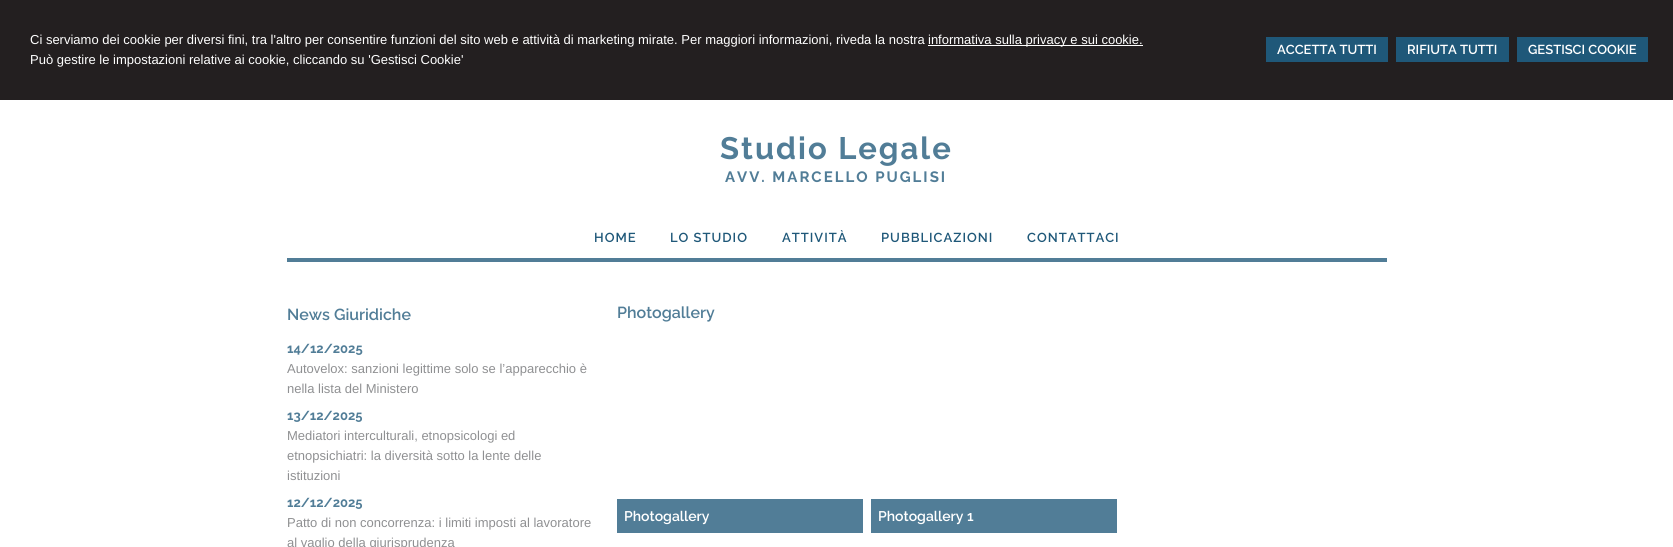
import math
import cairo

surface = cairo.ImageSurface(cairo.Format.RGB24, 1673, 547)
ctx = cairo.Context(surface)
options = cairo.FontOptions()
options.set_hint_metrics(cairo.HintMetrics.OFF)
options.set_hint_style(cairo.HintStyle.NONE)
ctx.set_font_options(options)
ctx.set_miter_limit(4)


def ink(r, g, b):
    ctx.set_source_rgb(r / 255, g / 255, b / 255)


def write(x, y, s, family, size, color, bold=False, italic=False):
    ctx.select_font_face(family, cairo.FontSlant.ITALIC if italic else cairo.FontSlant.NORMAL, cairo.FontWeight.BOLD if bold else cairo.FontWeight.NORMAL)
    ctx.set_font_size(size)
    ink(*color)
    ctx.move_to(x, y)
    ctx.show_text(s)


def write_spaced(x, y, s, letter, word):
    ctx.move_to(x, y)
    for ch in s:
        ctx.show_text(ch)
        ctx.rel_move_to(letter + word * (ch == ' '), 0)


def block(x, y, w, h, *color):
    ink(*color)
    ctx.rectangle(x, y, w, h)
    ctx.fill()


s1 = dict(family="Liberation Sans", size=13, color=(255, 255, 255))
s2 = dict(family="Raleway SemiBold", size=13, color=(255, 255, 255))
s3 = dict(family="Raleway SemiBold", size=16, color=(81, 125, 151))
s4 = dict(family="Raleway", size=13, color=(81, 125, 151), bold=True)
s5 = dict(family="Liberation Sans", size=13, color=(143, 144, 146))
s6 = dict(family="Raleway SemiBold", size=14, color=(255, 255, 255))

ink(255, 255, 255)
ctx.paint()
block(0, 0, 1673, 100, 35, 31, 32)
write(30, 44, "Ci serviamo dei cookie per diversi fini, tra l'altro per consentire funzioni del sito web e attività di marketing mirate. Per maggiori informazioni, riveda la nostra", **s1)
block(928, 45, 215, 1, 255, 255, 255)
write(928, 44, "informativa sulla privacy e sui cookie.", **s1)
write(30, 64, "Può gestire le impostazioni relative ai cookie, cliccando su 'Gestisci Cookie'", **s1)
block(1266, 37, 122, 25, 31, 88, 121)
write(1277, 54, "ACCETTA TUTTI", **s2)
block(1396, 37, 113, 25, 31, 88, 121)
write(1407, 54, "RIFIUTA TUTTI", **s2)
block(1517, 37, 131, 25, 31, 88, 121)
write(1528, 54, "GESTISCI COOKIE", **s2)
ctx.select_font_face("Raleway", cairo.FontSlant.NORMAL, cairo.FontWeight.BOLD)
ctx.set_font_size(31)
ink(81, 125, 151)
write_spaced(720, 159, "Studio Legale", 2, 0)
ctx.set_font_size(15)
write_spaced(725, 182, "AVV. MARCELLO PUGLISI", 2, 0)
ctx.select_font_face("Raleway SemiBold")
ctx.set_font_size(13)
ink(31, 88, 121)
write_spaced(594, 242, "HOME", 1, 0)
write_spaced(670, 242, "LO STUDIO", 1, 0)
write_spaced(782, 242, "ATTIVITÀ", 1, 0)
write_spaced(881, 242, "PUBBLICAZIONI", 1, 0)
write_spaced(1027, 242, "CONTATTACI", 1, 0)
block(287, 258, 1100, 4, 81, 125, 151)
write(287, 320, "News Giuridiche", **s3)
write(287, 353, "14/12/2025", **s4)
write(287, 373, "Autovelox: sanzioni legittime solo se l’apparecchio è", **s5)
write(287, 393, "nella lista del Ministero", **s5)
write(287, 420, "13/12/2025", **s4)
write(287, 440, "Mediatori interculturali, etnopsicologi ed", **s5)
write(287, 460, "etnopsichiatri: la diversità sotto la lente delle", **s5)
write(287, 480, "istituzioni", **s5)
write(287, 507, "12/12/2025", **s4)
write(287, 527, "Patto di non concorrenza: i limiti imposti al lavoratore", **s5)
write(287, 547, "al vaglio della giurisprudenza", **s5)
write(617, 318, "Photogallery", **s3)
block(617, 499, 246, 34, 81, 125, 151)
write(624, 521, "Photogallery", **s6)
block(871, 499, 246, 34, 81, 125, 151)
write(878, 521, "Photogallery 1", **s6)
surface.write_to_png("screenshot.png")
